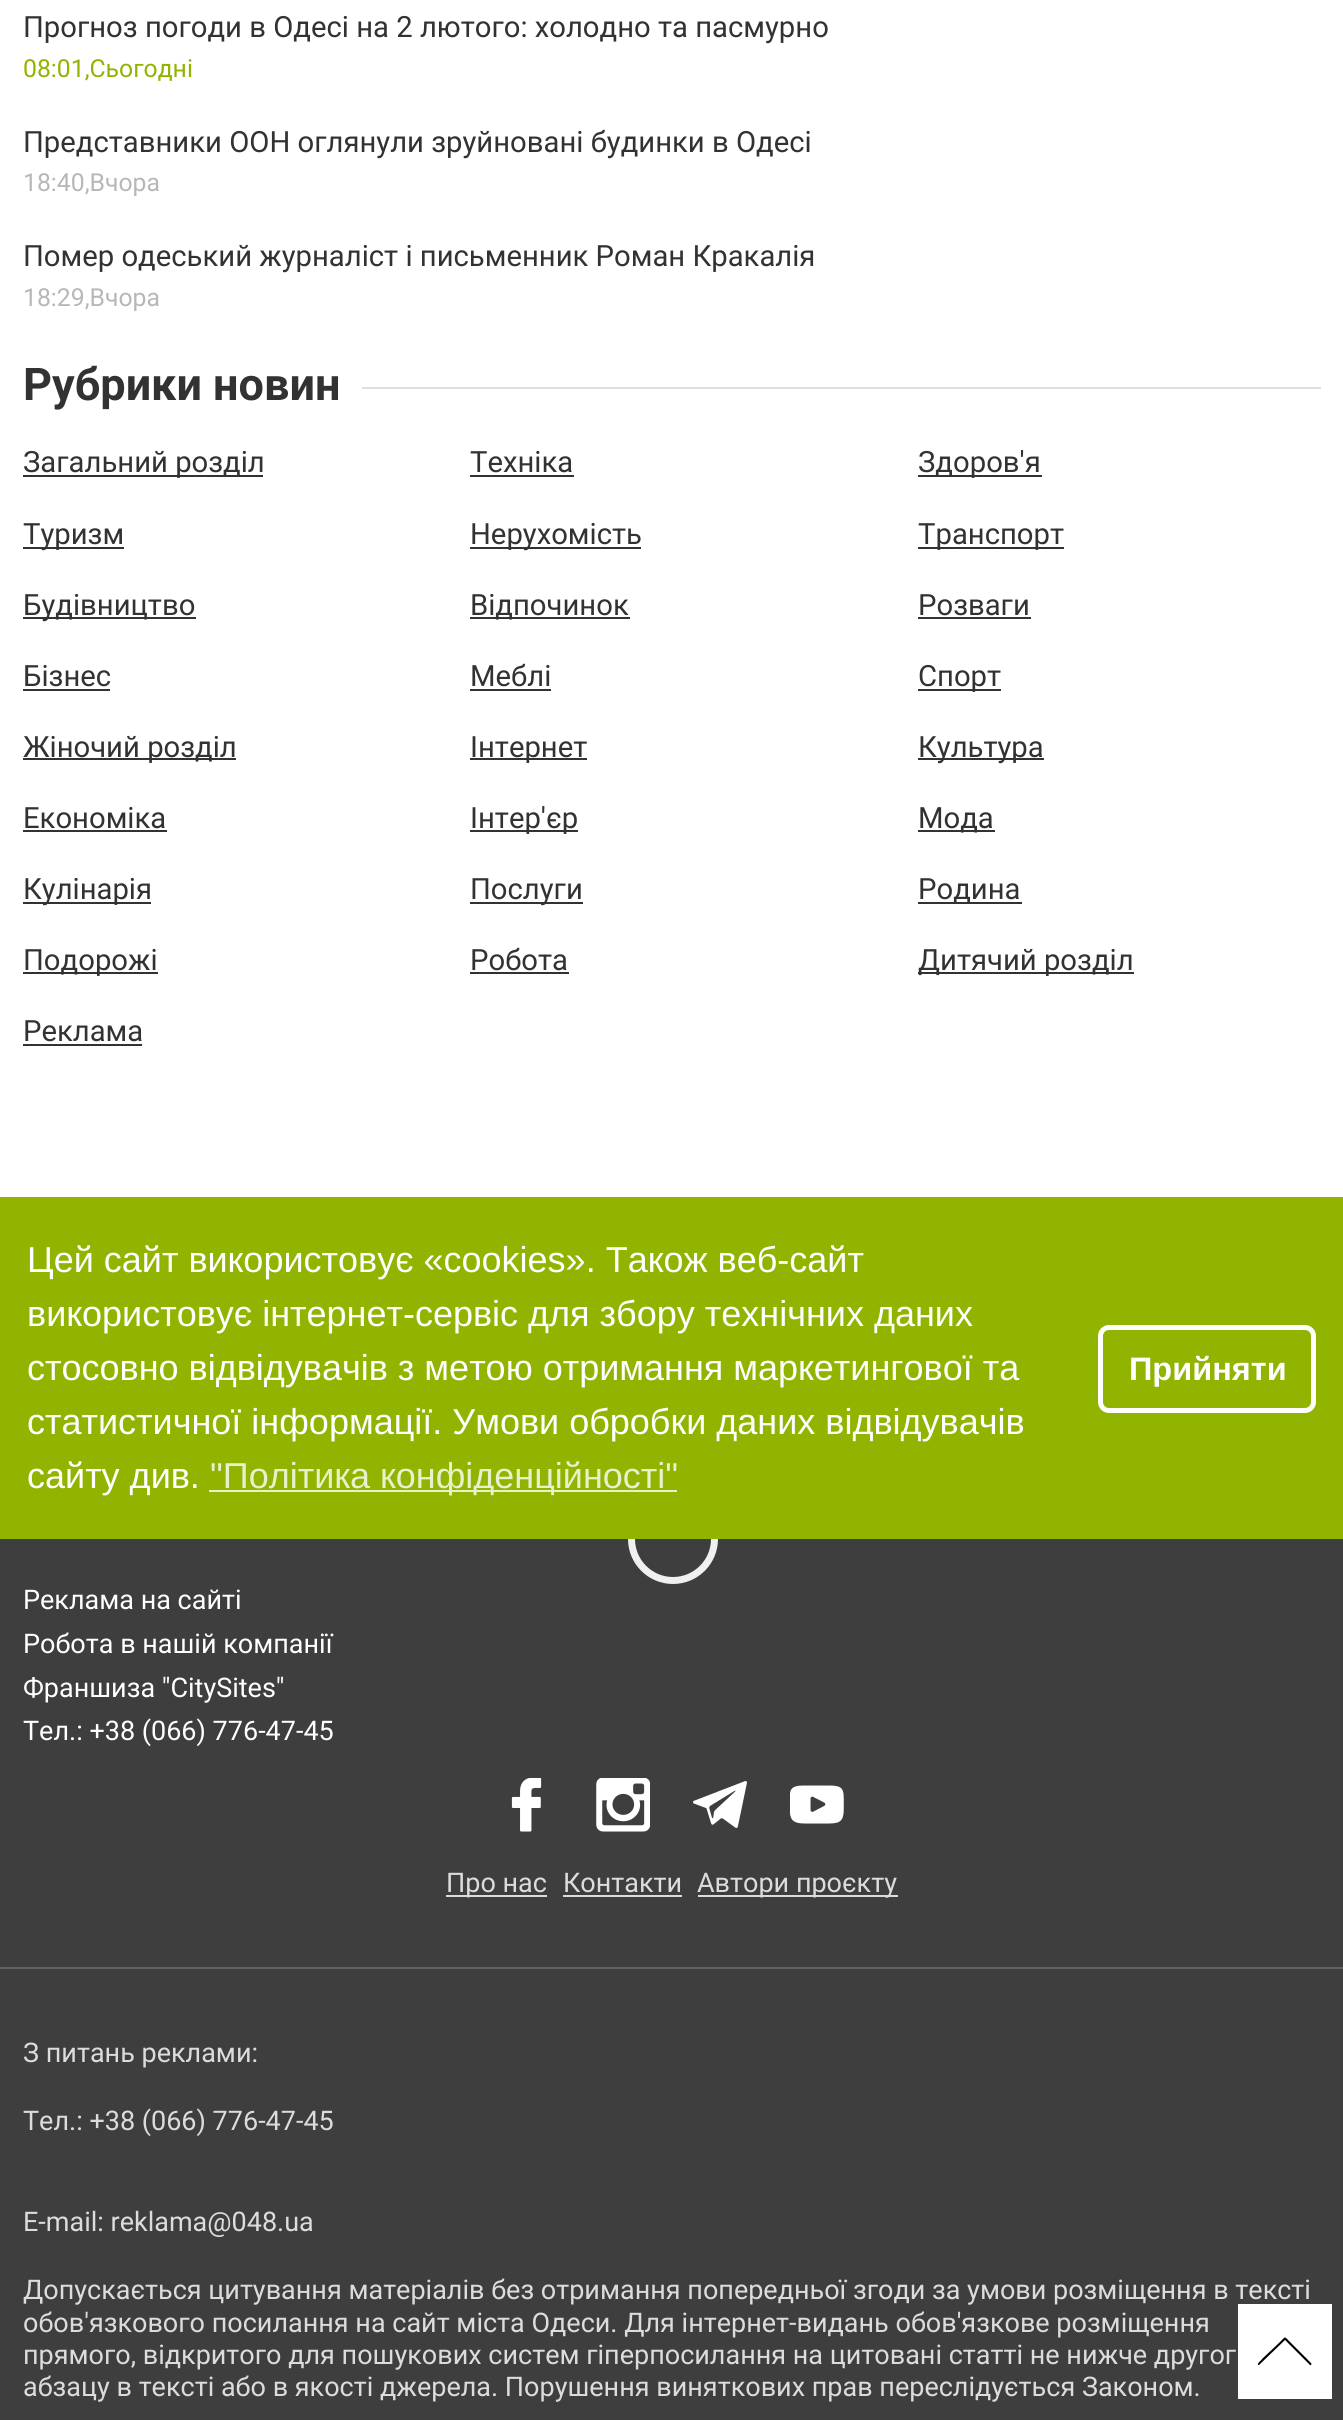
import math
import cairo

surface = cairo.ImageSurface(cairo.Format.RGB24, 1343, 2420)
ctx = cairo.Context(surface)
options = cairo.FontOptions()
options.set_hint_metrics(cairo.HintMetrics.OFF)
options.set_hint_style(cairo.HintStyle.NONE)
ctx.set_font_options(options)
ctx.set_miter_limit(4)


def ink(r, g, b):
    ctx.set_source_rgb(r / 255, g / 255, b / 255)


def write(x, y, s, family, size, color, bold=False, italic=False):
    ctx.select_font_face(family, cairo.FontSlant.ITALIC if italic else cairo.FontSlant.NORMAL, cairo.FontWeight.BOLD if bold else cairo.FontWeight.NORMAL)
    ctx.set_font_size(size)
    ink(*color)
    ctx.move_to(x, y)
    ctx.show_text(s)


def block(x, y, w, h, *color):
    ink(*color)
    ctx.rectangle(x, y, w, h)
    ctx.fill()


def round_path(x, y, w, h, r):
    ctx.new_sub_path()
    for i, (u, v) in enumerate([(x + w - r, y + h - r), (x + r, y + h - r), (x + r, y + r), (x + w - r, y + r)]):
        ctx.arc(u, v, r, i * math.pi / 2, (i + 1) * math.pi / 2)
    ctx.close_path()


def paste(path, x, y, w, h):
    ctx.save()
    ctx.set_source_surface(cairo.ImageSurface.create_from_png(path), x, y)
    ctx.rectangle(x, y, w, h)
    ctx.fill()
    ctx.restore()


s1 = dict(family="Roboto", size=29.25, color=(50, 50, 50))
s2 = dict(family="Roboto", size=24.75, color=(144, 180, 0))
s3 = dict(family="Roboto", size=24.75, color=(183, 183, 183))
s4 = dict(family="Roboto", size=45, color=(50, 50, 50), bold=True)
s5 = dict(family="Liberation Sans", size=36, color=(255, 255, 255))
s6 = dict(family="Liberation Sans", size=36, color=(233, 240, 204))
s7 = dict(family="Liberation Sans", size=32.5, color=(255, 255, 255), bold=True)
s8 = dict(family="Roboto", size=27, color=(255, 255, 255))
s9 = dict(family="Roboto", size=27, color=(220, 220, 220))

ink(255, 255, 255)
ctx.paint()
write(23, 37, "Прогноз погоди в Одесі на 2 лютого: холодно та пасмурно", **s1)
write(23, 77, "08:01,Сьогодні", **s2)
write(23, 152, "Представники ООН оглянули зруйновані будинки в Одесі", **s1)
write(23, 191, "18:40,Вчора", **s3)
write(23, 266, "Помер одеський журналіст і письменник Роман Кракалія", **s1)
write(23, 306, "18:29,Вчора", **s3)
write(23, 400, "Рубрики новин", **s4)
block(362, 387, 959, 2, 224, 224, 224)
block(23, 475, 240, 2, 50, 50, 50)
write(23, 472, "Загальний розділ", **s1)
write(470, 472, "Техніка", **s1)
block(470, 475, 104, 2, 50, 50, 50)
block(918, 475, 124, 2, 50, 50, 50)
write(918, 472, "Здоров'я", **s1)
block(23, 547, 101, 2, 50, 50, 50)
write(23, 544, "Туризм", **s1)
block(470, 547, 171, 2, 50, 50, 50)
write(470, 544, "Нерухомість", **s1)
block(918, 547, 146, 2, 50, 50, 50)
write(918, 544, "Транспорт", **s1)
block(23, 617, 173, 2, 50, 50, 50)
write(23, 615, "Будівництво", **s1)
block(470, 617, 160, 2, 50, 50, 50)
write(470, 615, "Відпочинок", **s1)
write(918, 615, "Розваги", **s1)
block(918, 617, 113, 2, 50, 50, 50)
write(23, 686, "Бізнес", **s1)
block(23, 689, 87, 2, 50, 50, 50)
write(470, 686, "Меблі", **s1)
block(470, 689, 81, 2, 50, 50, 50)
block(918, 689, 83, 2, 50, 50, 50)
write(918, 686, "Спорт", **s1)
block(23, 758, 213, 2, 50, 50, 50)
write(23, 757, "Жіночий розділ", **s1)
block(470, 758, 117, 2, 50, 50, 50)
write(470, 757, "Інтернет", **s1)
block(918, 758, 126, 2, 50, 50, 50)
write(918, 757, "Культура", **s1)
write(23, 828, "Економіка", **s1)
block(23, 830, 144, 2, 50, 50, 50)
block(470, 830, 108, 2, 50, 50, 50)
write(470, 828, "Інтер'єр", **s1)
block(918, 830, 77, 2, 50, 50, 50)
write(918, 828, "Мода", **s1)
block(23, 902, 128, 2, 50, 50, 50)
write(23, 899, "Кулінарія", **s1)
block(470, 902, 113, 2, 50, 50, 50)
write(470, 899, "Послуги", **s1)
block(918, 902, 104, 2, 50, 50, 50)
write(918, 899, "Родина", **s1)
block(23, 972, 135, 2, 50, 50, 50)
write(23, 970, "Подорожі", **s1)
write(470, 970, "Робота", **s1)
block(470, 972, 99, 2, 50, 50, 50)
block(918, 972, 216, 2, 50, 50, 50)
write(918, 970, "Дитячий розділ", **s1)
write(23, 1041, "Реклама", **s1)
block(23, 1044, 119, 2, 50, 50, 50)
block(0, 1539, 1343, 881, 63, 62, 62)
ctx.new_path()
ctx.arc(673, 1539, 41.5, 0, 2 * math.pi)
ctx.fill_preserve()
ink(240, 240, 240)
ctx.set_line_width(7)
ctx.stroke()
block(0, 1197, 1343, 342, 144, 180, 0)
write(27, 1272, "Цей сайт використовує «cookies». Також веб-сайт", **s5)
write(27, 1326, "використовує інтернет-сервіс для збору технічних даних", **s5)
write(27, 1380, "стосовно відвідувачів з метою отримання маркетингової та", **s5)
write(27, 1434, "статистичної інформації. Умови обробки даних відвідувачів", **s5)
write(27, 1488, "сайту див.", **s5)
block(209, 1490, 468, 2, 233, 240, 204)
write(210, 1488, "\"Політика конфіденційності\"", **s6)
round_path(1100.5, 1327.5, 213, 83, 8.5)
ink(255, 255, 255)
ctx.set_line_width(5)
ctx.stroke()
write(1129, 1380, "Прийняти", **s7)
write(23, 1609, "Реклама на сайті", **s8)
write(23, 1653, "Робота в нашій компанії", **s8)
write(23, 1697, "Франшиза \"CitySites\"", **s8)
write(23, 1740, "Тел.: +38 (066) 776-47-45", **s8)
paste("pic1.png", 511, 1778, 31, 54)
paste("pic2.png", 596, 1778, 54, 54)
paste("pic3.png", 693, 1781, 54, 47)
paste("pic4.png", 790, 1785, 54, 39)
block(446, 1895, 101, 2, 220, 220, 220)
write(446, 1892, "Про нас", **s9)
write(563, 1892, "Контакти", **s9)
block(563, 1895, 119, 2, 220, 220, 220)
block(698, 1895, 200, 2, 220, 220, 220)
write(697, 1892, "Автори проєкту", **s9)
block(0, 1967, 1343, 2, 99, 98, 98)
write(23, 2062, "З питань реклами:", **s9)
write(23, 2130, "Тел.: +38 (066) 776-47-45", **s9)
write(23, 2231, "E-mail: reklama@048.ua", **s9)
write(23, 2299, "Допускається цитування матеріалів без отримання попередньої згоди за умови розміщення в тексті", **s9)
write(23, 2332, "обов'язкового посилання на сайт міста Одеси. Для інтернет-видань обов'язкове розміщення", **s9)
write(23, 2364, "прямого, відкритого для пошукових систем гіперпосилання на цитовані статті не нижче другог", **s9)
write(23, 2396, "абзацу в тексті або в якості джерела. Порушення виняткових прав переслідується Законом.", **s9)
block(1238, 2304, 94, 95, 255, 255, 255)
ink(0, 0, 0)
ctx.new_path()
ctx.move_to(1311, 2363)
ctx.line_to(1290, 2342)
ctx.curve_to(1284, 2336, 1286, 2336, 1280, 2342)
ctx.line_to(1262, 2359)
ctx.curve_to(1262, 2360, 1257, 2363, 1258, 2365)
ctx.line_to(1259, 2365)
ctx.line_to(1285, 2340)
ctx.line_to(1310, 2365)
ctx.curve_to(1311, 2366, 1312, 2364, 1311, 2363)
ctx.close_path()
ctx.fill()
surface.write_to_png("screenshot.png")
